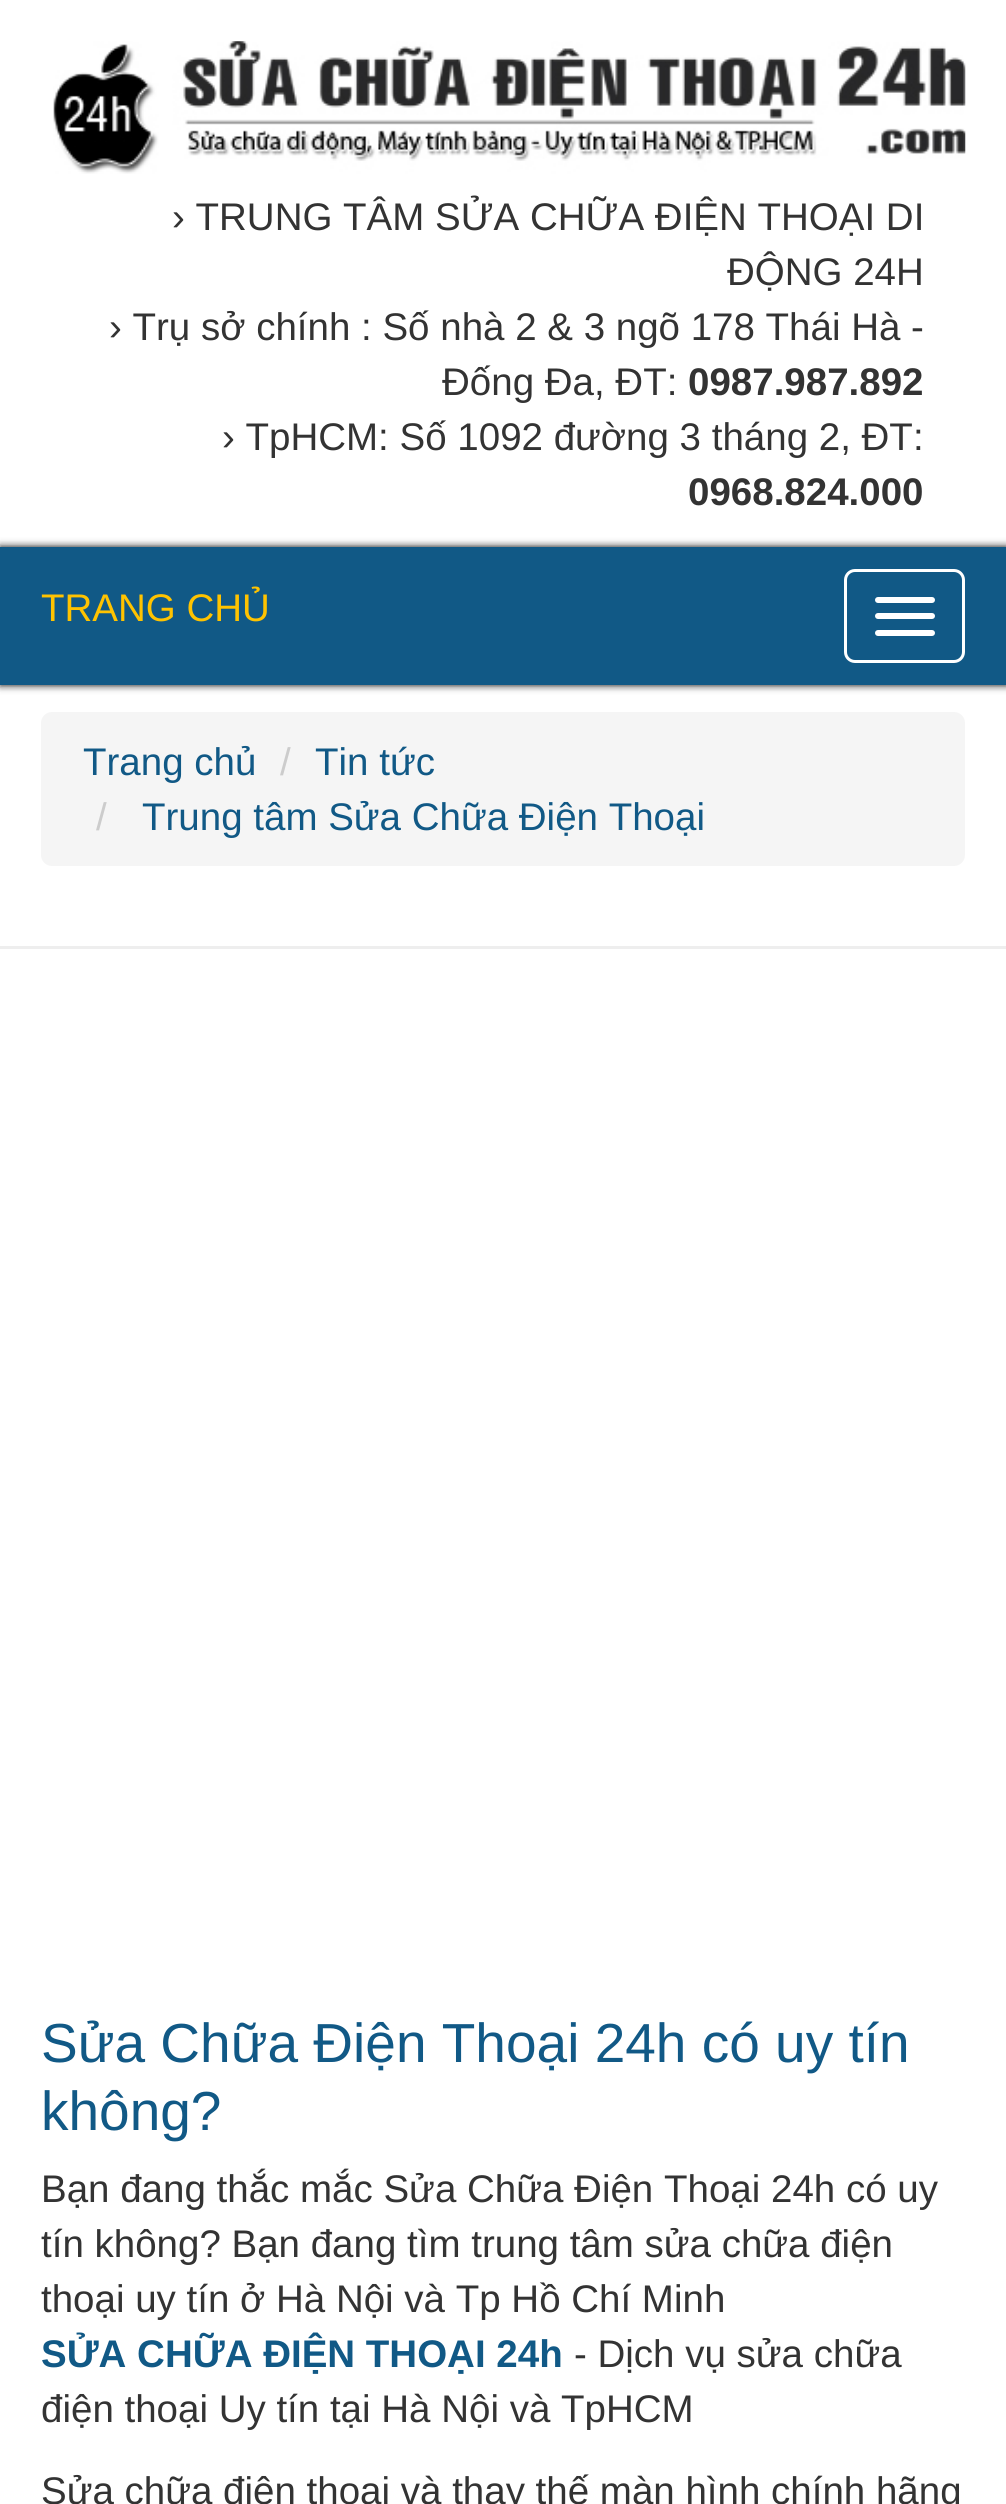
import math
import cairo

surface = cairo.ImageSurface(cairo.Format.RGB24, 1006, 2504)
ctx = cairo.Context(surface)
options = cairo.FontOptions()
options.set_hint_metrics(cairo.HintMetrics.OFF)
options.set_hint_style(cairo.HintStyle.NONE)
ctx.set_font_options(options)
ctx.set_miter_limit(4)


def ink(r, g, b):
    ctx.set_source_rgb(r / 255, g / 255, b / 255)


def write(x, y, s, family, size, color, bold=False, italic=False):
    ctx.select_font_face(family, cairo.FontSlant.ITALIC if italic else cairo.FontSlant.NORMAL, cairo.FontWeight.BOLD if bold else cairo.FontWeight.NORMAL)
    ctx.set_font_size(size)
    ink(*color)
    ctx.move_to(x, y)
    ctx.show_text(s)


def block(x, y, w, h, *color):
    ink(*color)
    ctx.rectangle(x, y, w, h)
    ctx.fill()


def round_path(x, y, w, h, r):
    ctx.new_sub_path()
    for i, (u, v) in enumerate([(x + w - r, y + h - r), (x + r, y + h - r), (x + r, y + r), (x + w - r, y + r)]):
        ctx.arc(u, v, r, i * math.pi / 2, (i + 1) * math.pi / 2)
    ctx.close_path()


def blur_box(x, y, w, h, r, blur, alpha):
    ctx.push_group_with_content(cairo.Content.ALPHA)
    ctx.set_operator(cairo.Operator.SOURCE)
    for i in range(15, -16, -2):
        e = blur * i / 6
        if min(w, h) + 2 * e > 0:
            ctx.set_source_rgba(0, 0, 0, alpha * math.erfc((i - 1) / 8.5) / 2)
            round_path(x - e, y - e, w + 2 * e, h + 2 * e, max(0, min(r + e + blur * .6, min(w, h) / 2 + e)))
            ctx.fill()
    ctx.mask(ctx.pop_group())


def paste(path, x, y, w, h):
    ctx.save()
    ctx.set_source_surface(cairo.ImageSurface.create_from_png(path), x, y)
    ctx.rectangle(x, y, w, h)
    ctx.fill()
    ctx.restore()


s1 = dict(family="Liberation Sans", size=38.5, color=(51, 51, 51))
s2 = dict(family="Liberation Sans", size=38.5, color=(51, 51, 51), bold=True)
s3 = dict(family="Liberation Sans", size=38.5, color=(255, 195, 0))
s4 = dict(family="Liberation Sans", size=38.5, color=(17, 89, 134))
s5 = dict(family="Liberation Sans", size=38.5, color=(204, 204, 204))
s6 = dict(family="Liberation Sans", size=55, color=(17, 89, 134))
s7 = dict(family="Liberation Sans", size=38.5, color=(17, 89, 134), bold=True)

ink(255, 255, 255)
ctx.paint()
paste("pic1.png", 53, 41, 913, 133)
write(172, 230, "› TRUNG TÂM SỬA CHỮA ĐIỆN THOẠI DI", **s1)
write(727, 285, "ĐỘNG 24H", **s1)
write(109, 340, "› Trụ sở chính : Số nhà 2 & 3 ngõ 178 Thái Hà -", **s1)
write(442, 395, "Đống Đa, ĐT:", **s1)
write(688, 395, "0987.987.892", **s2)
write(222, 450, "› TpHCM: Số 1092 đường 3 tháng 2, ĐT:", **s1)
write(688, 505, "0968.824.000", **s2)
ink(0, 0, 0)
blur_box(0, 547, 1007, 138, 0, 4, 1)
block(0, 547, 1006, 138, 17, 89, 134)
write(41, 621, "TRANG CHỦ", **s3)
round_path(845.5, 570.5, 118, 91, 9.5)
ink(255, 255, 255)
ctx.set_line_width(3)
ctx.stroke()
round_path(875, 597, 60, 6, 3)
ctx.fill()
round_path(875, 613, 60, 6, 3)
ctx.fill()
round_path(875, 630, 60, 6, 3)
ctx.fill()
block(0, 946, 1006, 3, 238, 238, 238)
ink(245, 245, 245)
round_path(41, 712, 924, 154, 11)
ctx.fill()
write(83, 775, "Trang chủ", **s4)
write(280, 775, "/", **s5)
write(315, 775, "Tin tức", **s4)
write(96, 830, "/", **s5)
write(142, 830, "Trung tâm Sửa Chữa Điện Thoại", **s4)
write(41, 2062, "Sửa Chữa Điện Thoại 24h có uy tín", **s6)
write(41, 2130, "không?", **s6)
write(41, 2202, "Bạn đang thắc mắc Sửa Chữa Điện Thoại 24h có uy", **s1)
write(41, 2257, "tín không? Bạn đang tìm trung tâm sửa chữa điện", **s1)
write(41, 2312, "thoại uy tín ở Hà Nội và Tp Hồ Chí Minh", **s1)
write(41, 2367, "SỬA CHỮA ĐIỆN THOẠI 24h", **s7)
write(574, 2367, "- Dịch vụ sửa chữa", **s1)
write(41, 2422, "điện thoại Uy tín tại Hà Nội và TpHCM", **s1)
write(41, 2504, "Sửa chữa điện thoại và thay thế màn hình chính hãng", **s1)
surface.write_to_png("screenshot.png")
